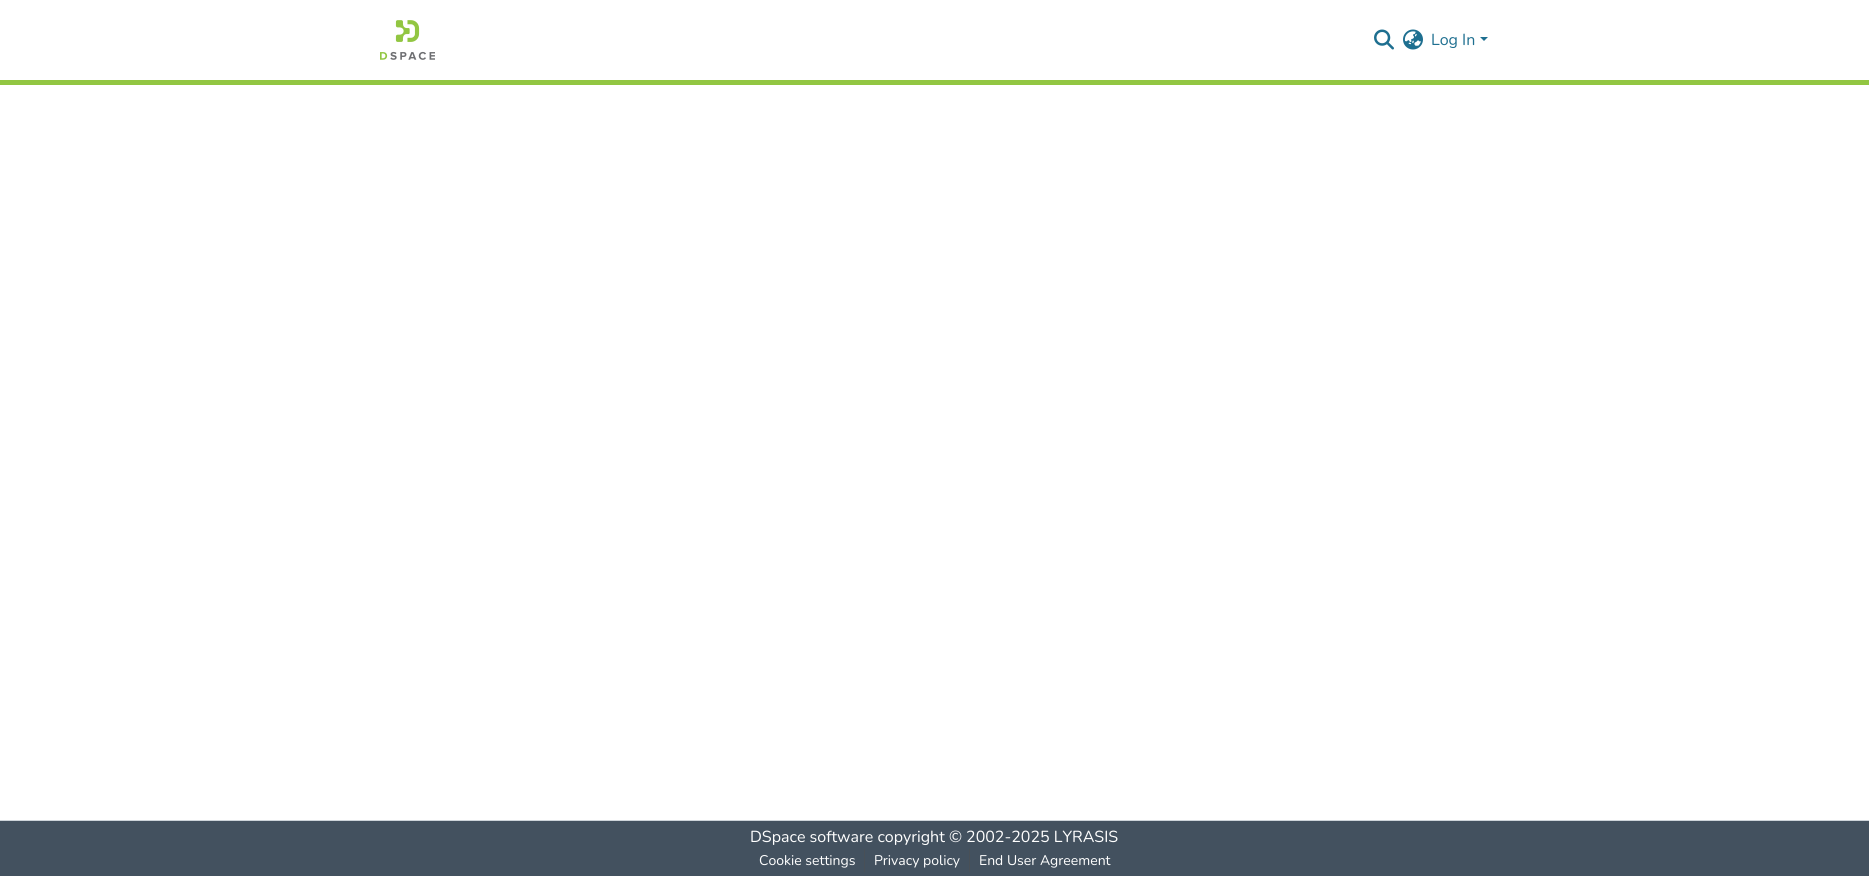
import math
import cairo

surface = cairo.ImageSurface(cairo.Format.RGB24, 1869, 876)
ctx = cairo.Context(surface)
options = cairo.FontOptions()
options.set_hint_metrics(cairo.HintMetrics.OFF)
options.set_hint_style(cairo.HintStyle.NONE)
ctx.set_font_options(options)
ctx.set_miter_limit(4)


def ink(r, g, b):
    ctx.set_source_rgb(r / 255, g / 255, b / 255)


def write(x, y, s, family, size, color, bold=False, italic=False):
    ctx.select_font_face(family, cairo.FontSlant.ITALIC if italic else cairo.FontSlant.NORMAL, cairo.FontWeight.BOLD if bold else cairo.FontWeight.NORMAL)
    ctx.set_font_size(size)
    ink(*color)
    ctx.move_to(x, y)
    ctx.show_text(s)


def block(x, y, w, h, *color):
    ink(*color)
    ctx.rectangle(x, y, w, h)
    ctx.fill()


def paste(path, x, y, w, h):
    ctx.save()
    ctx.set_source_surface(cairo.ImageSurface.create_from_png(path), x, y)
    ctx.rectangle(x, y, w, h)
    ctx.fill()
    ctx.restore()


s1 = dict(family="Nunito", size=16, color=(30, 111, 144))
s2 = dict(family="Nunito", size=16, color=(255, 255, 255))
s3 = dict(family="Nunito", size=14, color=(255, 255, 255))

ink(255, 255, 255)
ctx.paint()
block(0, 80, 1869, 5, 146, 198, 66)
paste("pic1.png", 380, 20, 55, 40)
paste("pic2.png", 1374, 29, 20, 21)
paste("pic3.png", 1403, 29, 20, 21)
write(1431, 45, "Log In", **s1)
ctx.new_path()
ctx.move_to(1480, 37)
ctx.line_to(1488, 37)
ctx.line_to(1484, 41)
ctx.close_path()
ctx.fill()
block(0, 821, 1869, 55, 67, 81, 95)
block(0, 820, 1869, 1, 206, 212, 218)
write(750, 842, "DSpace software copyright © 2002-2025 LYRASIS", **s2)
write(759, 865, "Cookie settings", **s3)
block(864, 849, 1, 23, 73, 80, 87)
write(874, 865, "Privacy policy", **s3)
block(969, 849, 1, 23, 73, 80, 87)
write(979, 865, "End User Agreement", **s3)
surface.write_to_png("screenshot.png")
